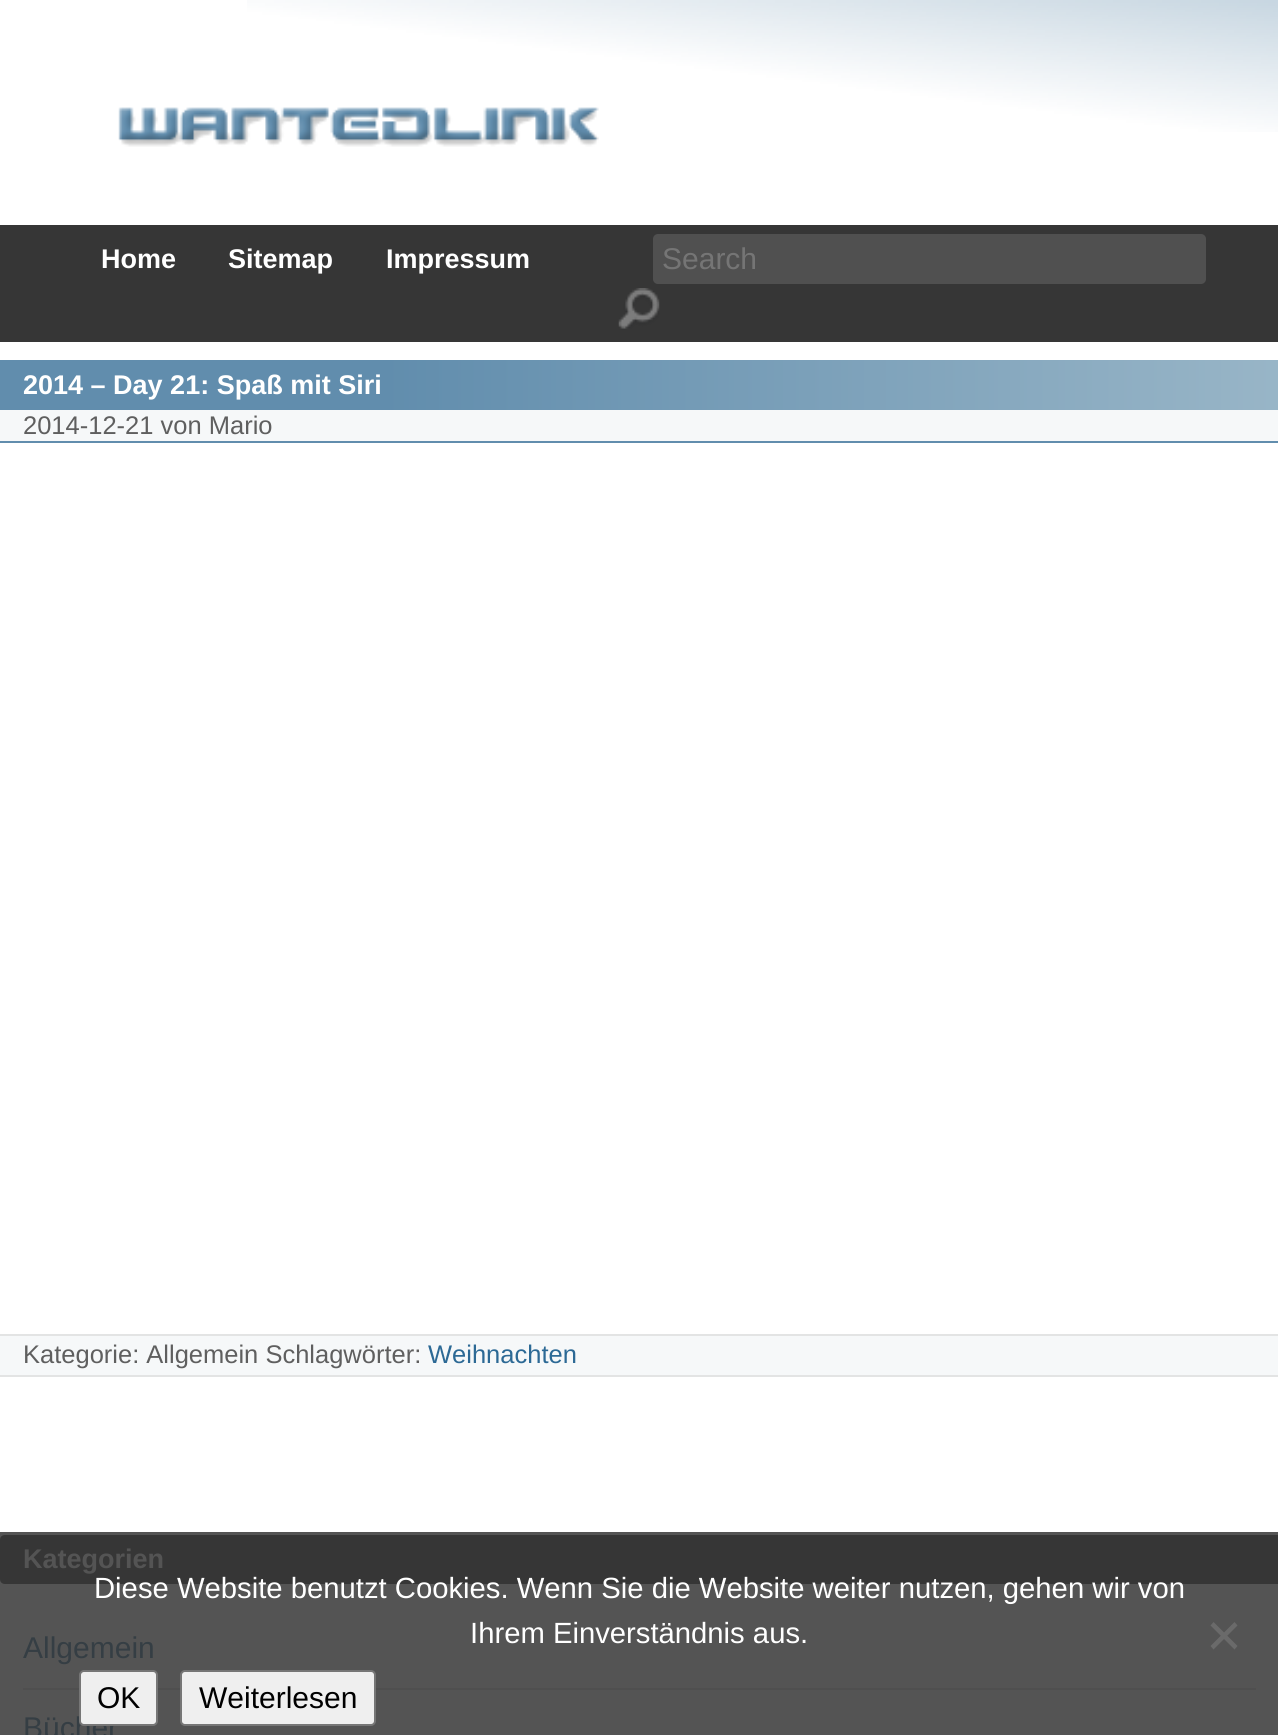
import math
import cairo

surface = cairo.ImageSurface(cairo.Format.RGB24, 1278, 1735)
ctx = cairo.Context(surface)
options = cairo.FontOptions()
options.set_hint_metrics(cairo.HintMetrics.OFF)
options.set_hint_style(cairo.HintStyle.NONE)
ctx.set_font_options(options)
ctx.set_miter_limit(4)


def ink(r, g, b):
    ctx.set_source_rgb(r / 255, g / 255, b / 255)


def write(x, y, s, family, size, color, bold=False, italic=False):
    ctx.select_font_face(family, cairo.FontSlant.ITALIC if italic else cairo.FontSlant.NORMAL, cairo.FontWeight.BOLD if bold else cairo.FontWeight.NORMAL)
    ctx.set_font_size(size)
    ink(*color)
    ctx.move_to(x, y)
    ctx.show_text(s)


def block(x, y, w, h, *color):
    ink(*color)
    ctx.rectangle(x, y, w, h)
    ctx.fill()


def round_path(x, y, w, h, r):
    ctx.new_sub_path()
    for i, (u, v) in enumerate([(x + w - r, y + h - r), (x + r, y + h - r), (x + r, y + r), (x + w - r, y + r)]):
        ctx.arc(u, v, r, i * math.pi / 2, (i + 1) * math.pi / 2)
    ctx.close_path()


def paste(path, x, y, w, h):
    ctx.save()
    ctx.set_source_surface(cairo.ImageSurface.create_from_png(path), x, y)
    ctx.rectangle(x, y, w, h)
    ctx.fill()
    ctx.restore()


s1 = dict(family="Liberation Sans", size=27, color=(255, 255, 255), bold=True)
s2 = dict(family="Liberation Sans", size=30, color=(117, 117, 117))
s3 = dict(family="Liberation Sans", size=25.5, color=(95, 95, 95))
s4 = dict(family="Liberation Sans", size=25.5, color=(44, 105, 149))
s5 = dict(family="Liberation Sans", size=27, color=(84, 84, 84), bold=True)
s6 = dict(family="Liberation Sans", size=30, color=(53, 62, 68))
s7 = dict(family="Liberation Sans", size=29.25, color=(255, 255, 255))
s8 = dict(family="Liberation Sans", size=30, color=(0, 0, 0))

ink(255, 255, 255)
ctx.paint()
block(0, 1532, 1278, 203, 84, 84, 84)
paste("pic1.png", 247, 0, 1031, 132)
paste("pic2.png", 118, 107, 481, 40)
block(0, 225, 1278, 117, 54, 54, 54)
write(101, 268, "Home", **s1)
write(228, 268, "Sitemap", **s1)
write(386, 268, "Impressum", **s1)
ink(80, 80, 80)
round_path(653, 234, 553, 50, 5)
ctx.fill()
write(662, 269, "Search", **s2)
paste("pic3.png", 618, 288, 42, 41)
gradient = cairo.LinearGradient(0, 385, 1278, 385)
gradient.add_color_stop_rgba(0.3, 0.38, 0.553, 0.678, 1)
gradient.add_color_stop_rgba(1, 0.596, 0.71, 0.78, 1)
ctx.set_source(gradient)
ctx.rectangle(0, 360, 1278, 50)
ctx.fill()
write(23, 394, "2014 – Day 21: Spaß mit Siri", **s1)
block(0, 410, 1278, 31, 246, 248, 249)
block(0, 441, 1278, 2, 97, 141, 173)
write(23, 434, "2014-12-21 von Mario", **s3)
block(0, 1336, 1278, 39, 246, 248, 249)
block(0, 1334, 1278, 2, 227, 228, 228)
block(0, 1375, 1278, 2, 227, 228, 228)
write(23, 1363, "Kategorie: Allgemein Schlagwörter:", **s3)
write(428, 1363, "Weihnachten", **s4)
ink(54, 54, 54)
ctx.new_path()
ctx.move_to(5, 1535)
ctx.line_to(1278, 1535)
ctx.line_to(1278, 1584)
ctx.line_to(5, 1584)
ctx.curve_to(2, 1584, 0, 1582, 0, 1579)
ctx.line_to(0, 1540)
ctx.curve_to(0, 1537, 2, 1535, 5, 1535)
ctx.close_path()
ctx.fill()
write(23, 1568, "Kategorien", **s5)
block(23, 1688, 1233, 2, 79, 79, 79)
write(23, 1658, "Allgemein", **s6)
write(23, 1738, "Bücher", **s6)
write(94, 1598, "Diese Website benutzt Cookies. Wenn Sie die Website weiter nutzen, gehen wir von", **s7)
write(470, 1643, "Ihrem Einverständnis aus.", **s7)
ink(106, 106, 106)
ctx.new_path()
ctx.move_to(1234.5, 1622)
ctx.line_to(1237.5, 1625.5)
ctx.line_to(1213.5, 1649.5)
ctx.line_to(1210.5, 1646)
ctx.close_path()
ctx.fill()
ctx.new_path()
ctx.move_to(1210.5, 1625.5)
ctx.line_to(1213.5, 1622)
ctx.line_to(1237.5, 1646)
ctx.line_to(1234.5, 1649.5)
ctx.close_path()
ctx.fill()
ink(239, 239, 239)
round_path(80, 1671, 77, 54, 4)
ctx.fill_preserve()
ink(118, 118, 118)
ctx.stroke()
write(97, 1708, "OK", **s8)
ink(239, 239, 239)
round_path(181, 1671, 194, 54, 4)
ctx.fill_preserve()
ink(118, 118, 118)
ctx.stroke()
write(199, 1708, "Weiterlesen", **s8)
surface.write_to_png("screenshot.png")
